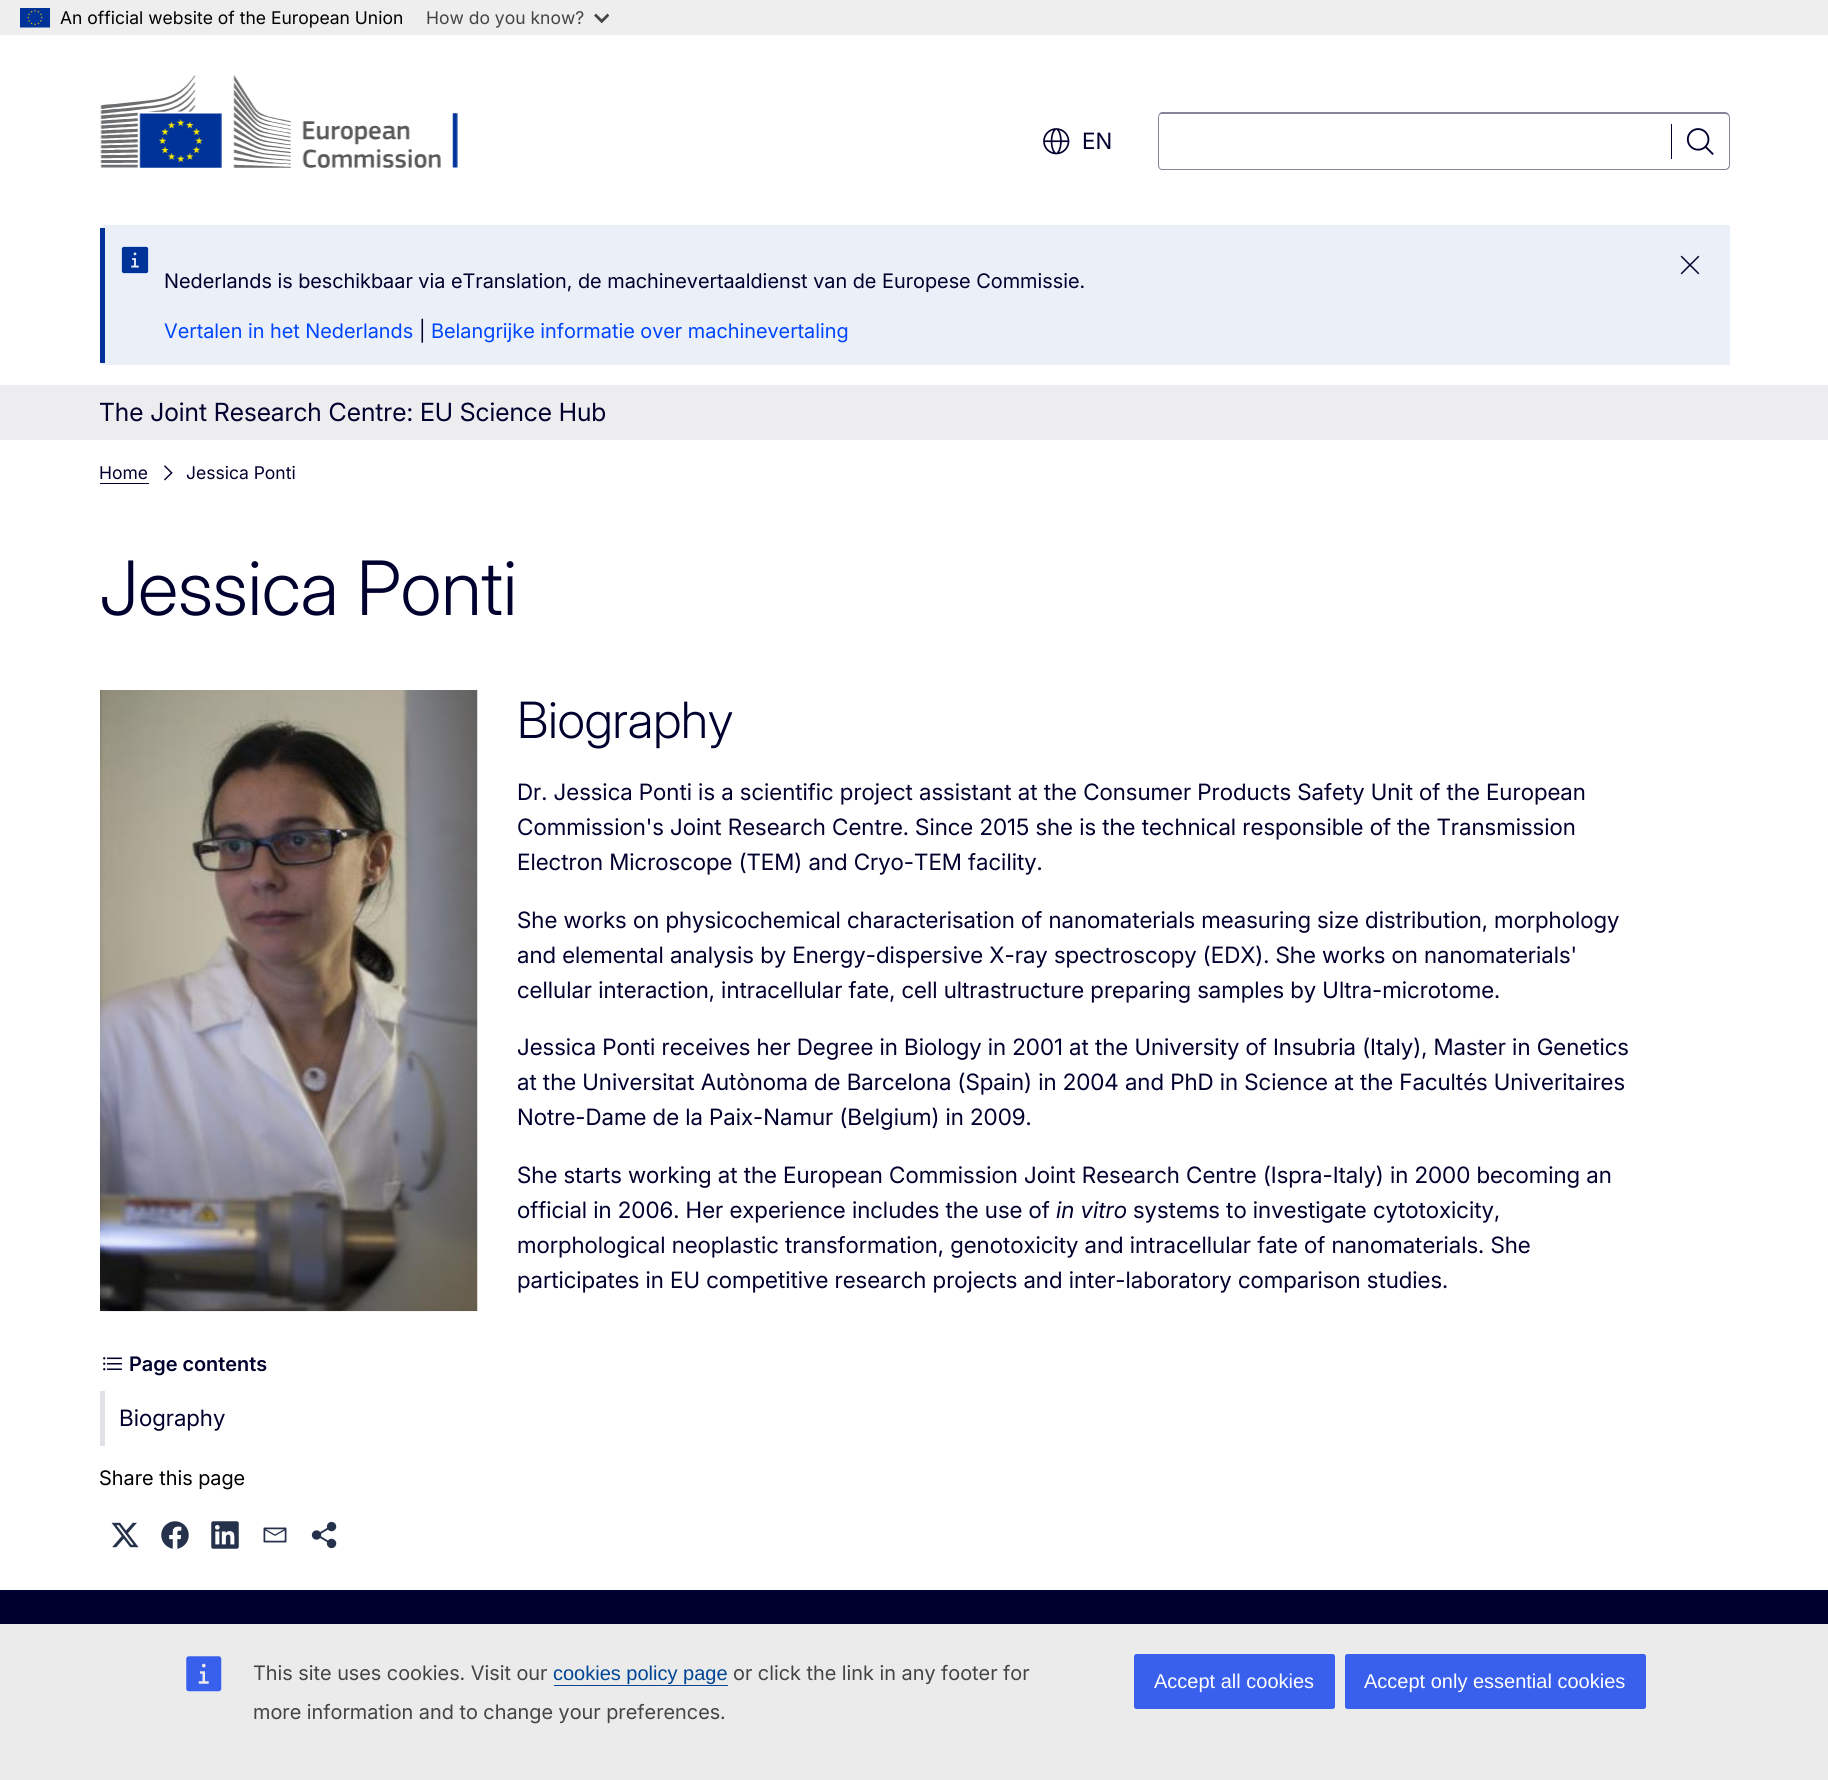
import math
import cairo

surface = cairo.ImageSurface(cairo.Format.RGB24, 1828, 1780)
ctx = cairo.Context(surface)
options = cairo.FontOptions()
options.set_hint_metrics(cairo.HintMetrics.OFF)
options.set_hint_style(cairo.HintStyle.NONE)
ctx.set_font_options(options)
ctx.set_miter_limit(4)


def ink(r, g, b):
    ctx.set_source_rgb(r / 255, g / 255, b / 255)


def write(x, y, s, family, size, color, bold=False, italic=False):
    ctx.select_font_face(family, cairo.FontSlant.ITALIC if italic else cairo.FontSlant.NORMAL, cairo.FontWeight.BOLD if bold else cairo.FontWeight.NORMAL)
    ctx.set_font_size(size)
    ink(*color)
    ctx.move_to(x, y)
    ctx.show_text(s)


def block(x, y, w, h, *color):
    ink(*color)
    ctx.rectangle(x, y, w, h)
    ctx.fill()


def round_path(x, y, w, h, r):
    ctx.new_sub_path()
    for i, (u, v) in enumerate([(x + w - r, y + h - r), (x + r, y + h - r), (x + r, y + r), (x + w - r, y + r)]):
        ctx.arc(u, v, r, i * math.pi / 2, (i + 1) * math.pi / 2)
    ctx.close_path()


def paste(path, x, y, w, h):
    ctx.save()
    ctx.set_source_surface(cairo.ImageSurface.create_from_png(path), x, y)
    ctx.rectangle(x, y, w, h)
    ctx.fill()
    ctx.restore()


s1 = dict(family="Inter", size=17.5, color=(0, 0, 0))
s2 = dict(family="Inter", size=17.5, color=(68, 68, 68))
s3 = dict(family="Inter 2", size=22.5, color=(0, 0, 46))
s4 = dict(family="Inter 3", size=20, color=(0, 0, 46))
s5 = dict(family="Inter 3", size=20, color=(0, 70, 255))
s6 = dict(family="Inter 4", size=25, color=(0, 0, 46))
s7 = dict(family="Inter", size=17.5, color=(0, 0, 46))
s8 = dict(family="Inter Light", size=75, color=(0, 0, 46))
s9 = dict(family="Inter Light", size=50, color=(0, 0, 46))
s10 = dict(family="Inter", size=22.5, color=(0, 0, 46), italic=True)
s11 = dict(family="Inter SemiBold", size=20, color=(0, 0, 46))
s12 = dict(family="Inter 3", size=20, color=(0, 0, 0))
s13 = dict(family="Inter 3", size=20, color=(68, 68, 68))
s14 = dict(family="Liberation Sans", size=20, color=(0, 68, 148))
s15 = dict(family="Liberation Sans", size=20, color=(255, 255, 255))

ink(255, 255, 255)
ctx.paint()
block(0, 0, 1828, 35, 238, 238, 238)
paste("pic1.png", 20, 8, 30, 20)
write(60, 24, "An official website of the European Union", **s1)
write(426, 24, "How do you know?", **s2)
paste("pic2.png", 594, 13, 15, 11)
paste("pic3.png", 100, 75, 358, 93)
paste("pic4.png", 1043, 128, 27, 27)
write(1082, 149, "EN", **s3)
ink(132, 132, 155)
ctx.set_fill_rule(cairo.FillRule.EVEN_ODD)
ctx.new_path()
ctx.move_to(1162, 112)
ctx.line_to(1672, 112)
ctx.line_to(1672, 170)
ctx.line_to(1162, 170)
ctx.curve_to(1160, 170, 1158, 168, 1158, 165)
ctx.line_to(1158, 118)
ctx.curve_to(1158, 115, 1160, 112, 1162, 112)
ctx.close_path()
ctx.move_to(1162, 114)
ctx.line_to(1672, 114)
ctx.line_to(1672, 169)
ctx.line_to(1162, 169)
ctx.curve_to(1160, 169, 1159, 167, 1159, 165)
ctx.line_to(1159, 118)
ctx.curve_to(1159, 115, 1160, 114, 1162, 114)
ctx.close_path()
ctx.fill()
ctx.new_path()
ctx.move_to(1672, 112)
ctx.line_to(1725, 112)
ctx.curve_to(1728, 112, 1730, 115, 1730, 118)
ctx.line_to(1730, 165)
ctx.curve_to(1730, 168, 1728, 170, 1725, 170)
ctx.line_to(1672, 170)
ctx.close_path()
ctx.move_to(1672, 114)
ctx.line_to(1725, 114)
ctx.curve_to(1727, 114, 1729, 115, 1729, 118)
ctx.line_to(1729, 165)
ctx.curve_to(1729, 167, 1727, 169, 1725, 169)
ctx.line_to(1672, 169)
ctx.close_path()
ctx.fill()
block(1671, 124, 1, 35, 0, 0, 46)
paste("pic5.png", 1686, 128, 28, 27)
ink(235, 239, 247)
ctx.new_path()
ctx.move_to(105, 225)
ctx.line_to(1730, 225)
ctx.line_to(1730, 365)
ctx.line_to(105, 365)
ctx.curve_to(102, 365, 100, 363, 100, 360)
ctx.line_to(100, 230)
ctx.curve_to(100, 227, 102, 225, 105, 225)
ctx.close_path()
ctx.fill()
block(100, 228, 5, 135, 0, 51, 153)
paste("pic6.png", 121, 246, 28, 28)
paste("pic7.png", 1680, 255, 20, 20)
write(164, 288, "Nederlands is beschikbaar via eTranslation, de machinevertaaldienst van de Europese Commissie.", **s4)
write(164, 338, "Vertalen in het Nederlands", **s5)
write(419, 338, "|", **s4)
write(431, 338, "Belangrijke informatie over machinevertaling", **s5)
block(0, 385, 1828, 55, 237, 237, 240)
write(99, 421, "The Joint Research Centre: EU Science Hub", **s6)
write(99, 479, "Home", **s7)
block(100, 483, 49, 1, 0, 0, 46)
paste("pic8.png", 164, 465, 9, 16)
write(186, 479, "Jessica Ponti", **s7)
write(99, 615, "Jessica Ponti", **s8)
write(517, 738, "Biography", **s9)
write(517, 800, "Dr. Jessica Ponti is a scientific project assistant at the Consumer Products Safety Unit of the European", **s3)
write(517, 835, "Commission's Joint Research Centre. Since 2015 she is the technical responsible of the Transmission", **s3)
write(517, 870, "Electron Microscope (TEM) and Cryo-TEM facility.", **s3)
write(517, 928, "She works on physicochemical characterisation of nanomaterials measuring size distribution, morphology", **s3)
write(517, 963, "and elemental analysis by Energy-dispersive X-ray spectroscopy (EDX). She works on nanomaterials'", **s3)
write(517, 998, "cellular interaction, intracellular fate, cell ultrastructure preparing samples by Ultra-microtome.", **s3)
write(517, 1055, "Jessica Ponti receives her Degree in Biology in 2001 at the University of Insubria (Italy), Master in Genetics", **s3)
write(517, 1090, "at the Universitat Autònoma de Barcelona (Spain) in 2004 and PhD in Science at the Facultés Univeritaires", **s3)
write(517, 1125, "Notre-Dame de la Paix-Namur (Belgium) in 2009.", **s3)
write(517, 1183, "She starts working at the European Commission Joint Research Centre (Ispra-Italy) in 2000 becoming an", **s3)
write(517, 1218, "official in 2006. Her experience includes the use of", **s3)
write(1056, 1218, "in vitro", **s10)
write(1133, 1218, "systems to investigate cytotoxicity,", **s3)
write(517, 1253, "morphological neoplastic transformation, genotoxicity and intracellular fate of nanomaterials. She", **s3)
write(517, 1288, "participates in EU competitive research projects and inter-laboratory comparison studies.", **s3)
paste("pic9.png", 100, 690, 378, 622)
paste("pic10.png", 103, 1357, 19, 14)
write(129, 1371, "Page contents", **s11)
block(100, 1391, 5, 55, 225, 225, 231)
write(119, 1426, "Biography", **s3)
write(99, 1485, "Share this page", **s12)
paste("pic11.png", 111, 1522, 28, 26)
paste("pic12.png", 161, 1521, 28, 28)
paste("pic13.png", 211, 1521, 28, 28)
paste("pic14.png", 263, 1527, 24, 16)
paste("pic15.png", 311, 1521, 26, 28)
block(0, 1590, 1828, 34, 0, 0, 46)
block(0, 1624, 1828, 156, 235, 235, 235)
paste("pic16.png", 186, 1656, 36, 36)
write(253, 1680, "This site uses cookies. Visit our", **s13)
write(553, 1680, "cookies policy page", **s14)
block(554, 1685, 174, 1, 0, 68, 148)
write(733, 1680, "or click the link in any footer for", **s13)
write(253, 1719, "more information and to change your preferences.", **s13)
ink(56, 96, 237)
round_path(1134, 1654, 201, 55, 2.5)
ctx.fill()
write(1154, 1688, "Accept all cookies", **s15)
ink(56, 96, 237)
round_path(1345, 1654, 301, 55, 2.5)
ctx.fill()
write(1364, 1688, "Accept only essential cookies", **s15)
surface.write_to_png("screenshot.png")
